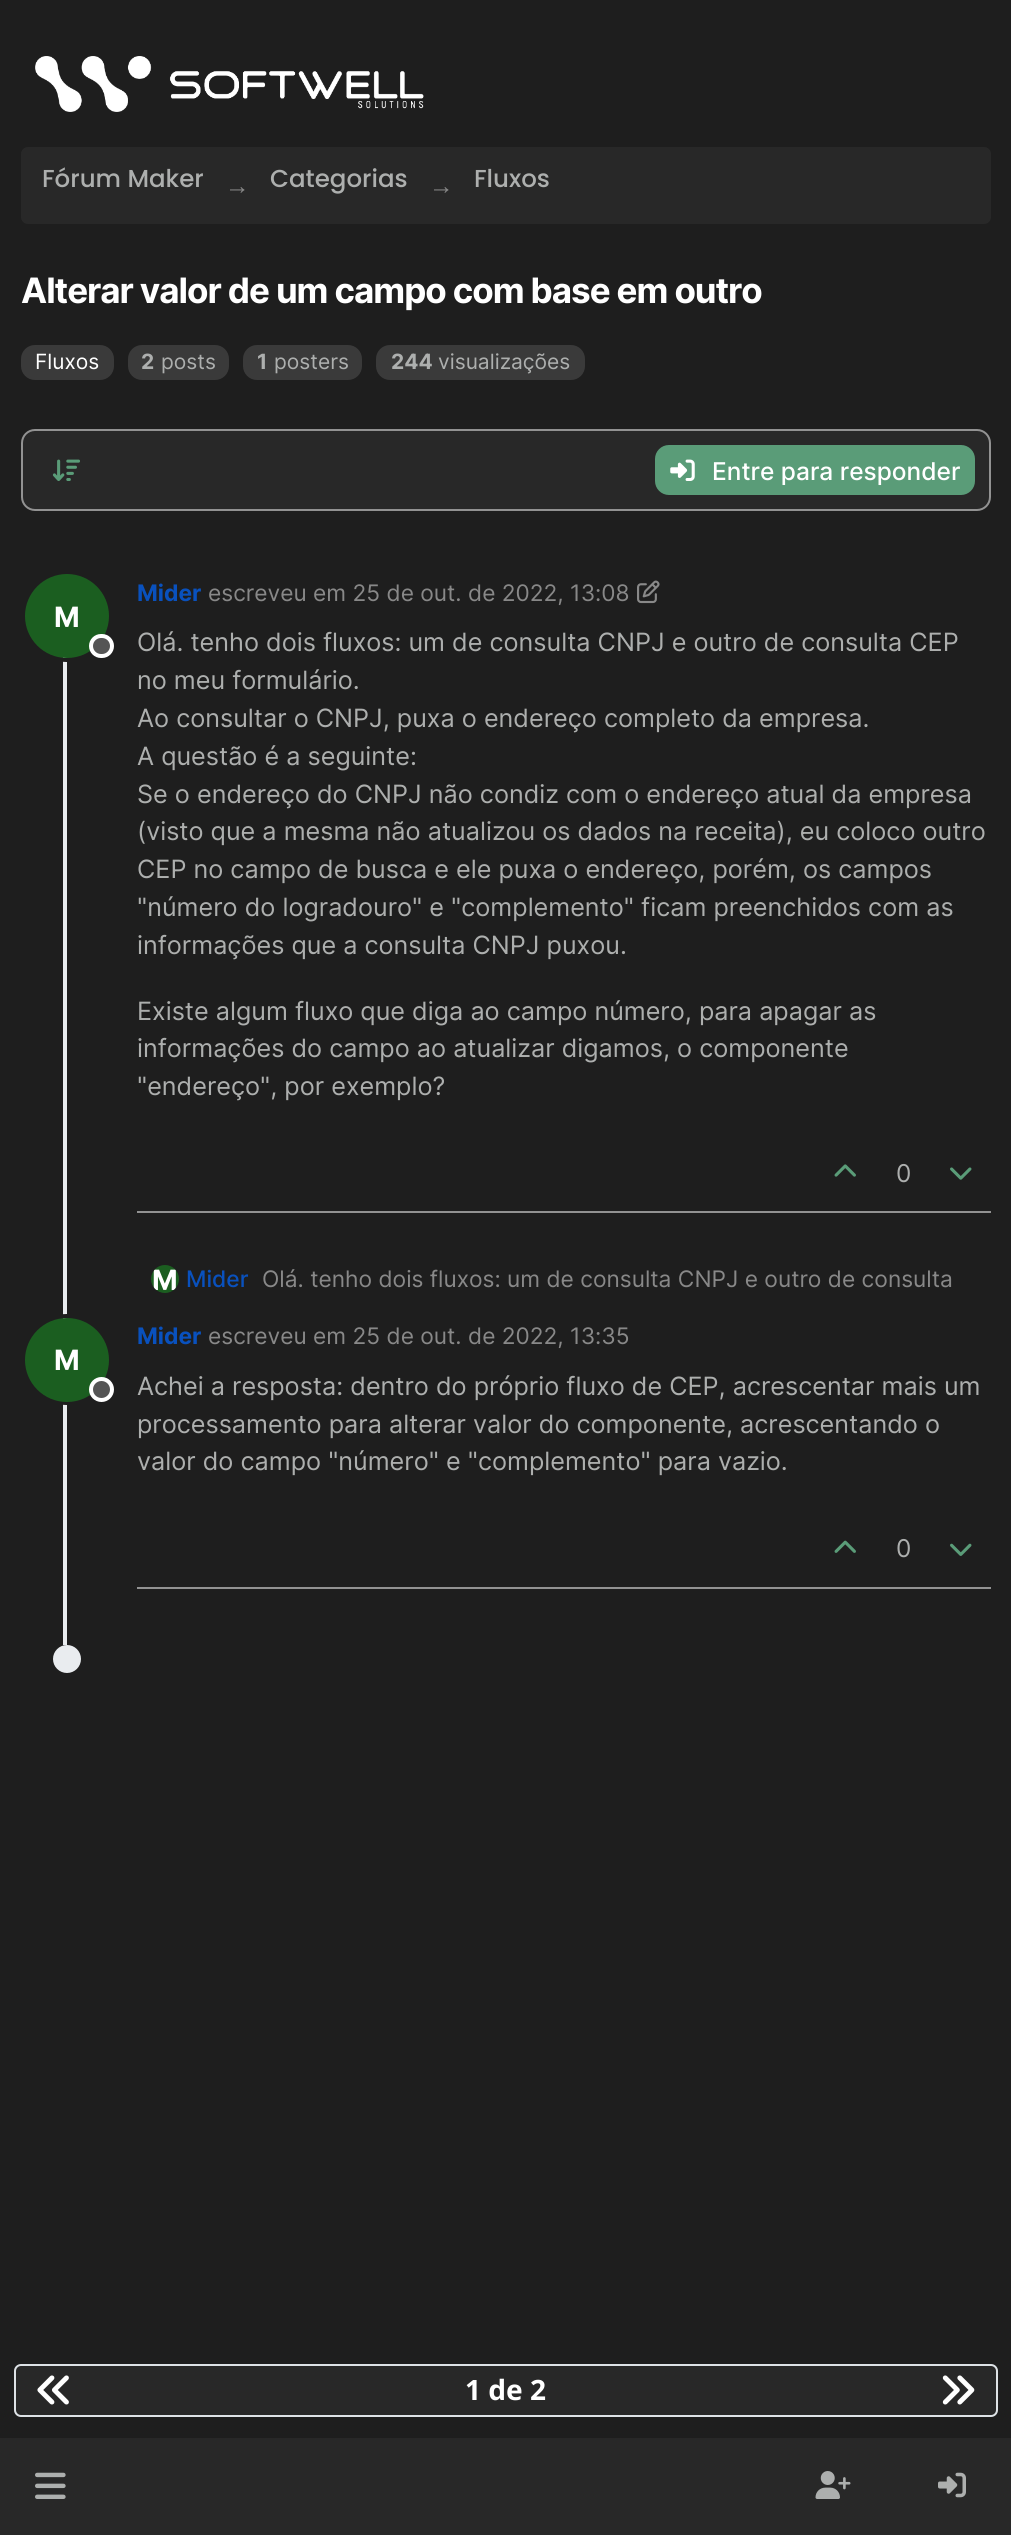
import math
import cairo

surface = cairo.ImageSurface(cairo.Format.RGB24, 1011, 2535)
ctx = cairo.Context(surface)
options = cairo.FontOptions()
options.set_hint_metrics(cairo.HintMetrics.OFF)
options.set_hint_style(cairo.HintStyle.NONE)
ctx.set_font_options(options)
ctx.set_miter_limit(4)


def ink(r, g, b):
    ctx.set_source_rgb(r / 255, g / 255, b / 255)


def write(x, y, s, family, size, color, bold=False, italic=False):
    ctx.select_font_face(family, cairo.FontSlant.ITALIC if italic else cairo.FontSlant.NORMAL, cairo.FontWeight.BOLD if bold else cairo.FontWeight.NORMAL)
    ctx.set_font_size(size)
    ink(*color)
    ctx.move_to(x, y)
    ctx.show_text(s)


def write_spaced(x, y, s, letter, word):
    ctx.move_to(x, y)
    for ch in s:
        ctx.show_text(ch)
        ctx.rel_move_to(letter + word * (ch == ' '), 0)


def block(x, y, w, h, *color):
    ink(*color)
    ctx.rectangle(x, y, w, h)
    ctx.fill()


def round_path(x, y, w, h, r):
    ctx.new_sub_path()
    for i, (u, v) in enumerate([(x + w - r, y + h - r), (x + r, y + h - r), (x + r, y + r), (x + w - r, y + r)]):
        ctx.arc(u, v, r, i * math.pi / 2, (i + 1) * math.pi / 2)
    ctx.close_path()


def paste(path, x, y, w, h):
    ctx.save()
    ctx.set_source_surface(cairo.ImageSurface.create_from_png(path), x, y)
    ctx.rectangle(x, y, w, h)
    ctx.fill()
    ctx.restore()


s1 = dict(family="Poppins Medium", size=24.5, color=(173, 175, 174))
s2 = dict(family="Liberation Sans", size=24.5, color=(136, 136, 136))
s3 = dict(family="Inter", size=21, color=(255, 255, 255))
s4 = dict(family="Inter", size=21, color=(173, 175, 174), bold=True)
s5 = dict(family="Inter", size=21, color=(173, 175, 174))
s6 = dict(family="Inter Medium", size=24.5, color=(255, 255, 255))
s7 = dict(family="Inter", size=28, color=(255, 255, 255), bold=True)
s8 = dict(family="Inter", size=22.75, color=(9, 81, 190), bold=True)
s9 = dict(family="Inter", size=22.75, color=(136, 136, 136))
s10 = dict(family="Inter", size=25.2, color=(173, 175, 174))
s11 = dict(family="Inter", size=24.5, color=(173, 175, 174))
s12 = dict(family="Inter Medium", size=22.75, color=(9, 81, 190))
s13 = dict(family="Noto Sans", size=28, color=(255, 255, 255), bold=True)

ink(30, 30, 30)
ctx.paint()
paste("pic1.png", 35, 56, 389, 56)
ink(40, 40, 40)
round_path(21, 147, 970, 77, 7)
ctx.fill()
write(42, 187, "Fórum Maker", **s1)
write(225, 194, "→", **s2)
write(270, 187, "Categorias", **s1)
write(474, 187, "Fluxos", **s1)
write(429, 194, "→", **s2)
ctx.select_font_face("Inter", cairo.FontSlant.NORMAL, cairo.FontWeight.BOLD)
ctx.set_font_size(35)
ink(255, 255, 255)
write_spaced(21, 303, "Alterar valor de um campo com base em outro", -1.05, 0)
ink(58, 58, 58)
round_path(21, 345, 93, 35, 14)
ctx.fill()
write(35, 369, "Fluxos", **s3)
ink(58, 58, 58)
round_path(128, 345, 101, 35, 14)
ctx.fill()
write(141, 369, "2", **s4)
write(161, 369, "posts", **s5)
ink(58, 58, 58)
round_path(243, 345, 119, 35, 14)
ctx.fill()
write(257, 369, "1", **s4)
write(274, 369, "posters", **s5)
ink(58, 58, 58)
round_path(376, 345, 209, 35, 14)
ctx.fill()
write(391, 369, "244", **s4)
write(438, 369, "visualizações", **s5)
ink(40, 40, 40)
round_path(22, 430, 968, 80, 13)
ctx.fill_preserve()
ink(146, 146, 146)
ctx.stroke()
paste("pic2.png", 52, 459, 28, 22)
ink(90, 156, 120)
round_path(655, 445, 320, 50, 14)
ctx.fill()
paste("pic3.png", 670, 459, 25, 22)
write(712, 480, "Entre para responder", **s6)
block(63, 657, 4, 988, 233, 236, 239)
ctx.new_path()
ctx.arc(66.5, 616.5, 43.5, 0, 2 * math.pi)
ink(30, 30, 30)
ctx.set_line_width(4)
ctx.stroke()
ink(27, 94, 32)
ctx.arc(67, 616, 42, 0, 2 * math.pi)
ctx.fill()
write(54, 627, "M", **s7)
ink(85, 85, 85)
round_path(91, 636, 21, 20, 10)
ctx.fill_preserve()
ink(255, 255, 255)
ctx.stroke()
write(137, 601, "Mider", **s8)
write(208, 601, "escreveu em 25 de out. de 2022, 13:08", **s9)
paste("pic4.png", 637, 580, 23, 24)
write(137, 651, "Olá. tenho dois fluxos: um de consulta CNPJ e outro de consulta CEP", **s10)
write(137, 689, "no meu formulário.", **s10)
write(137, 727, "Ao consultar o CNPJ, puxa o endereço completo da empresa.", **s10)
write(137, 765, "A questão é a seguinte:", **s10)
write(137, 803, "Se o endereço do CNPJ não condiz com o endereço atual da empresa", **s10)
write(137, 840, "(visto que a mesma não atualizou os dados na receita), eu coloco outro", **s10)
write(137, 878, "CEP no campo de busca e ele puxa o endereço, porém, os campos", **s10)
write(137, 916, "\"número do logradouro\" e \"complemento\" ficam preenchidos com as", **s10)
write(137, 954, "informações que a consulta CNPJ puxou.", **s10)
write(137, 1020, "Existe algum fluxo que diga ao campo número, para apagar as", **s10)
write(137, 1057, "informações do campo ao atualizar digamos, o componente", **s10)
write(137, 1095, "\"endereço\", por exemplo?", **s10)
block(137, 1211, 854, 2, 146, 146, 146)
paste("pic5.png", 834, 1164, 22, 13)
write(896, 1182, "0", **s11)
paste("pic6.png", 950, 1167, 22, 13)
ink(27, 94, 32)
ctx.arc(165, 1279, 14, 0, 2 * math.pi)
ctx.fill()
ctx.save()
round_path(151, 1265, 28, 28, 14)
ctx.clip()
write(152, 1290, "M", **s7)
ctx.restore()
write(186, 1287, "Mider", **s12)
write(262, 1287, "Olá. tenho dois fluxos: um de consulta CNPJ e outro de consulta", **s9)
ctx.new_path()
ctx.arc(66.5, 1359.5, 43.5, 0, 2 * math.pi)
ink(30, 30, 30)
ctx.stroke()
ink(27, 94, 32)
ctx.arc(67, 1360, 42, 0, 2 * math.pi)
ctx.fill()
write(54, 1370, "M", **s7)
ink(85, 85, 85)
ctx.new_path()
ctx.arc(101.5, 1389.5, 10.5, 0, 2 * math.pi)
ctx.fill_preserve()
ink(255, 255, 255)
ctx.stroke()
write(137, 1344, "Mider", **s8)
write(208, 1344, "escreveu em 25 de out. de 2022, 13:35", **s9)
write(137, 1395, "Achei a resposta: dentro do próprio fluxo de CEP, acrescentar mais um", **s10)
write(137, 1433, "processamento para alterar valor do componente, acrescentando o", **s10)
write(137, 1470, "valor do campo \"número\" e \"complemento\" para vazio.", **s10)
block(137, 1587, 854, 2, 146, 146, 146)
paste("pic7.png", 834, 1540, 22, 13)
write(896, 1557, "0", **s11)
paste("pic8.png", 950, 1543, 22, 13)
ink(233, 236, 239)
ctx.arc(67, 1659, 14, 0, 2 * math.pi)
ctx.fill()
ink(40, 40, 40)
round_path(15, 2365, 982, 51, 6)
ctx.fill_preserve()
ink(222, 226, 230)
ctx.set_line_width(2)
ctx.stroke()
paste("pic9.png", 37, 2375, 32, 30)
write(465, 2400, "1 de 2", **s13)
paste("pic10.png", 942, 2375, 33, 30)
block(0, 2438, 1011, 97, 40, 40, 40)
paste("pic11.png", 35, 2472, 31, 27)
paste("pic12.png", 815, 2471, 36, 28)
paste("pic13.png", 938, 2472, 28, 26)
surface.write_to_png("screenshot.png")
